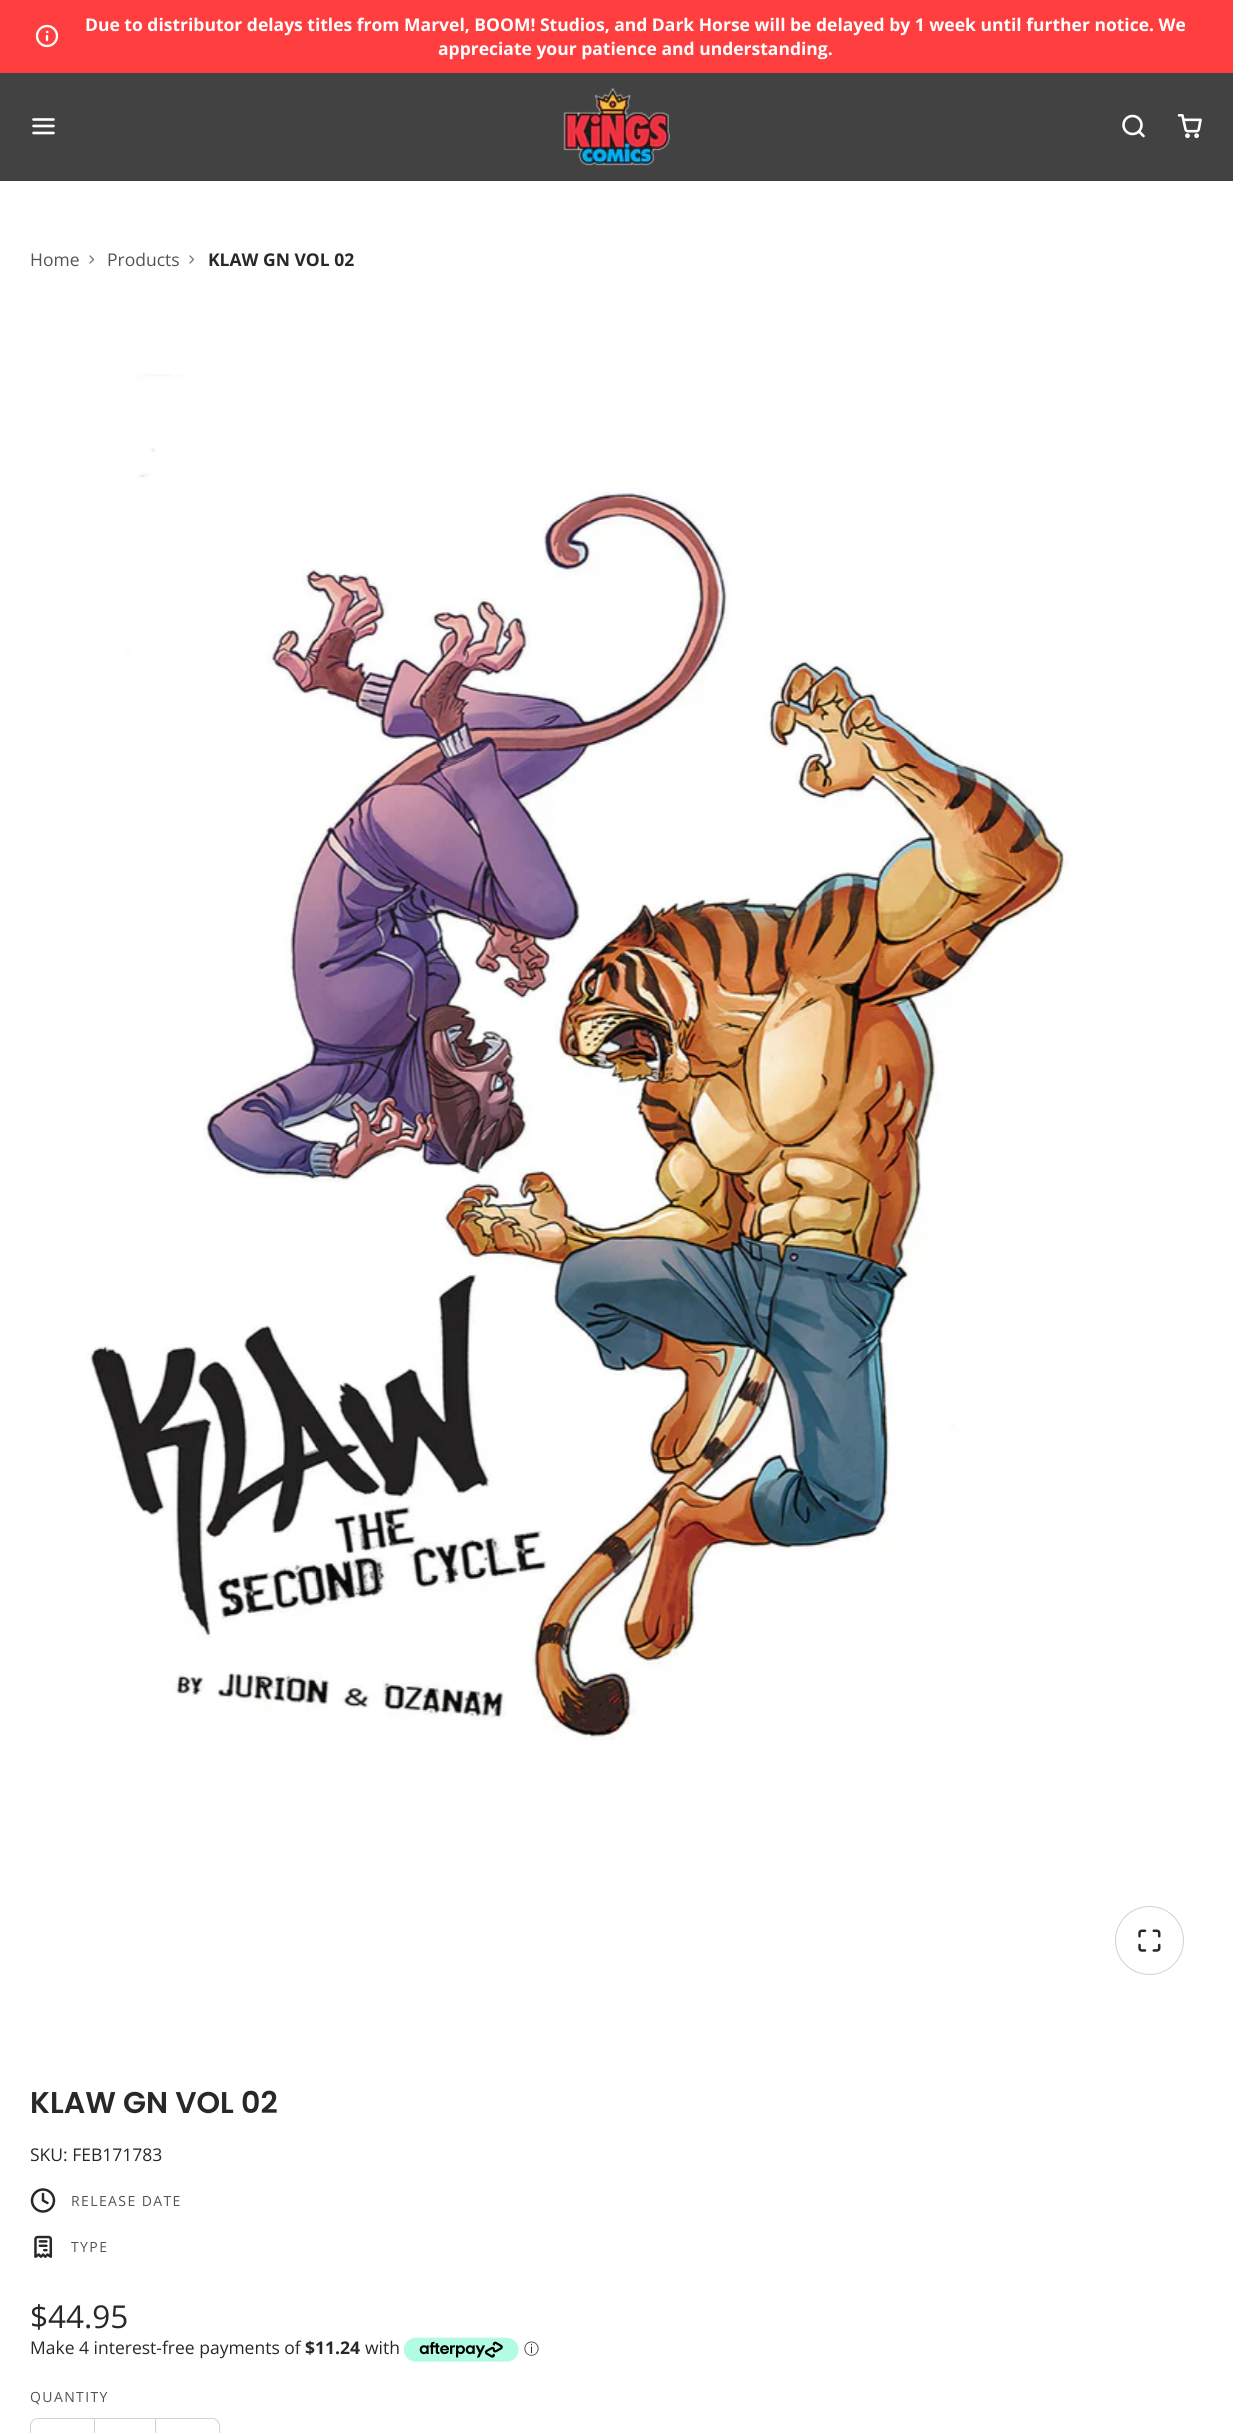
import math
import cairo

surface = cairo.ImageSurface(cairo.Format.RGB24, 1233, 2433)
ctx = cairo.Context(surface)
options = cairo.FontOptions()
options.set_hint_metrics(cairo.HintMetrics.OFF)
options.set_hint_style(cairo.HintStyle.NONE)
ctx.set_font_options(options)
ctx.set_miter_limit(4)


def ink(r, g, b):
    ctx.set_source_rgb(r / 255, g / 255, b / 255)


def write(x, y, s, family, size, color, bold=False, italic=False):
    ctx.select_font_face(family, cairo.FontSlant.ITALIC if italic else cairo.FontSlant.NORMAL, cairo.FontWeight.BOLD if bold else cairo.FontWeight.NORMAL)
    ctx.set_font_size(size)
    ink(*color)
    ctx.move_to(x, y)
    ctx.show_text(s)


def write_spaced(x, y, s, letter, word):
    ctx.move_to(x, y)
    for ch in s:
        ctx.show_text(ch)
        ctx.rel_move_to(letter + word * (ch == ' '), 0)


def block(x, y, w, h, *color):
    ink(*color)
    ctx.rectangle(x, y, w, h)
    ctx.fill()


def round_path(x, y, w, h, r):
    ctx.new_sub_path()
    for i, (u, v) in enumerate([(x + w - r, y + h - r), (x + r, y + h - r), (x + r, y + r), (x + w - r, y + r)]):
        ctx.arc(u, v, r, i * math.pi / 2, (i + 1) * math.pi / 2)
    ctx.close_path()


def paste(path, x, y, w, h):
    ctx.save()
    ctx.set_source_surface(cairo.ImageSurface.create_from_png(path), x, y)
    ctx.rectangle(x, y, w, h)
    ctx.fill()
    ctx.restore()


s1 = dict(family="Open Sans", size=17.5, color=(255, 255, 255), bold=True)
s2 = dict(family="Open Sans", size=17.5, color=(83, 83, 83))
s3 = dict(family="Open Sans", size=17.5, color=(40, 40, 40), bold=True)
s4 = dict(family="Poppins SemiBold", size=30, color=(40, 40, 40))
s5 = dict(family="Open Sans", size=17.5, color=(40, 40, 40))
s6 = dict(family="Open Sans", size=31.5, color=(40, 40, 40))
s7 = dict(family="WenQuanYi Zen Hei Medium", size=15, color=(40, 40, 40))

ink(255, 255, 255)
ctx.paint()
block(0, 0, 1233, 73, 255, 63, 63)
ctx.arc(47, 36, 10, 0, 2 * math.pi)
ink(255, 255, 255)
ctx.set_line_width(2.3)
ctx.stroke()
ctx.new_path()
ctx.move_to(47, 40)
ctx.line_to(47, 36)
ctx.move_to(47, 32)
ctx.line_to(47.5, 32)
ctx.set_line_cap(cairo.LineCap.ROUND)
ctx.set_line_join(cairo.LineJoin.ROUND)
ctx.stroke()
write(85, 31, "Due to distributor delays titles from Marvel, BOOM! Studios, and Dark Horse will be delayed by 1 week until further notice. We", **s1)
write(438, 55, "appreciate your patience and understanding.", **s1)
block(0, 73, 1233, 108, 66, 66, 66)
ctx.new_path()
ctx.move_to(33.5, 126)
ctx.line_to(53.5, 126)
ctx.move_to(33.5, 119.5)
ctx.line_to(53.5, 119.5)
ctx.move_to(33.5, 133)
ctx.line_to(53.5, 133)
ink(255, 255, 255)
ctx.set_line_width(2.6)
ctx.stroke()
paste("pic1.png", 563, 87, 107, 79)
ctx.arc(1132.5, 125, 9, 0, 2 * math.pi)
ctx.set_line_cap(cairo.LineCap.BUTT)
ctx.set_line_join(cairo.LineJoin.MITER)
ctx.stroke()
ctx.new_path()
ctx.move_to(1143.5, 136)
ctx.line_to(1139, 131.5)
ctx.set_line_cap(cairo.LineCap.ROUND)
ctx.set_line_join(cairo.LineJoin.ROUND)
ctx.stroke()
paste("pic2.png", 1177, 114, 25, 25)
write(30, 266, "Home", **s2)
ctx.new_path()
ctx.move_to(90, 263)
ctx.line_to(93.5, 259.5)
ctx.line_to(90, 256)
ink(117, 117, 117)
ctx.set_line_width(1.3)
ctx.stroke()
write(107, 266, "Products", **s2)
ctx.new_path()
ctx.move_to(190, 263)
ctx.line_to(193.5, 259.5)
ctx.line_to(190, 256)
ink(117, 117, 117)
ctx.stroke()
write(208, 266, "KLAW GN VOL 02", **s3)
paste("pic3.png", 86, 374, 983, 1367)
ctx.arc(1149.5, 1940.5, 34, 0, 2 * math.pi)
ink(209, 209, 209)
ctx.set_line_width(1)
ctx.set_line_cap(cairo.LineCap.BUTT)
ctx.set_line_join(cairo.LineJoin.MITER)
ctx.stroke()
paste("pic4.png", 1138, 1929, 23, 23)
write(30, 2113, "KLAW GN VOL 02", **s4)
write(30, 2161, "SKU: FEB171783", **s5)
ctx.new_path()
ctx.arc(43, 2200.5, 11, 0, 2 * math.pi)
ctx.set_line_width(2.5)
ctx.stroke()
ctx.new_path()
ctx.move_to(43, 2194)
ctx.line_to(43, 2200.5)
ctx.line_to(47.5, 2203)
ctx.set_line_cap(cairo.LineCap.ROUND)
ctx.set_line_join(cairo.LineJoin.ROUND)
ctx.stroke()
ctx.set_font_size(14)
ink(83, 83, 83)
write_spaced(71, 2206, "RELEASE DATE", 1.4, 0)
paste("pic5.png", 34, 2235, 19, 23)
write_spaced(71, 2252, "TYPE", 1.4, 0)
write(30, 2328, "$44.95", **s6)
write(30, 2354, "Make 4 interest-free payments of", **s5)
write(305, 2354, "$11.24", **s3)
write(365, 2354, "with", **s5)
paste("pic6.png", 404, 2337, 115, 25)
write(524, 2354, "ⓘ", **s7)
ctx.select_font_face("Open Sans")
ctx.set_font_size(14)
ink(83, 83, 83)
write_spaced(30, 2402, "QUANTITY", 1.4, 0)
round_path(30.5, 2418.5, 189, 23, 7.5)
ink(209, 209, 209)
ctx.set_line_width(1)
ctx.set_line_cap(cairo.LineCap.BUTT)
ctx.set_line_join(cairo.LineJoin.MITER)
ctx.stroke()
block(155, 2419, 1, 14, 209, 209, 209)
block(94, 2419, 1, 14, 209, 209, 209)
surface.write_to_png("screenshot.png")
